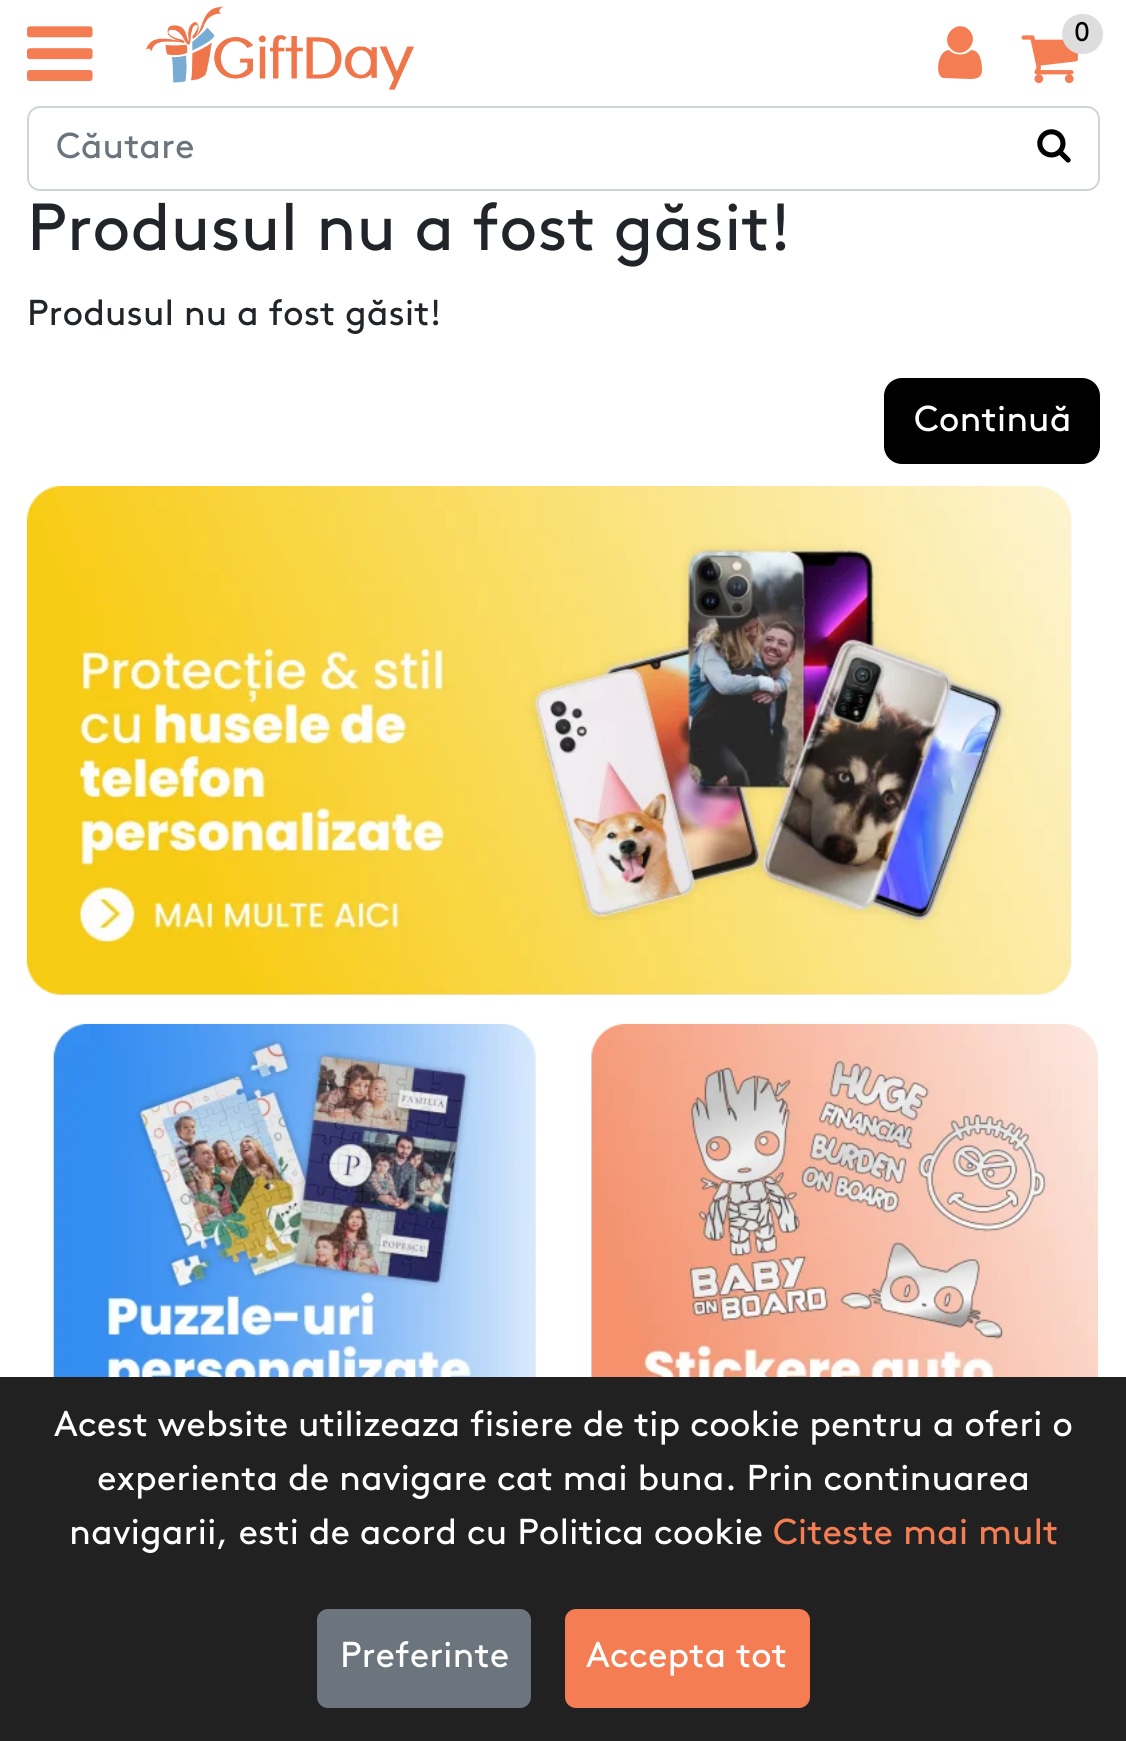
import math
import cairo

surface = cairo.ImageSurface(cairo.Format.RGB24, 1126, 1741)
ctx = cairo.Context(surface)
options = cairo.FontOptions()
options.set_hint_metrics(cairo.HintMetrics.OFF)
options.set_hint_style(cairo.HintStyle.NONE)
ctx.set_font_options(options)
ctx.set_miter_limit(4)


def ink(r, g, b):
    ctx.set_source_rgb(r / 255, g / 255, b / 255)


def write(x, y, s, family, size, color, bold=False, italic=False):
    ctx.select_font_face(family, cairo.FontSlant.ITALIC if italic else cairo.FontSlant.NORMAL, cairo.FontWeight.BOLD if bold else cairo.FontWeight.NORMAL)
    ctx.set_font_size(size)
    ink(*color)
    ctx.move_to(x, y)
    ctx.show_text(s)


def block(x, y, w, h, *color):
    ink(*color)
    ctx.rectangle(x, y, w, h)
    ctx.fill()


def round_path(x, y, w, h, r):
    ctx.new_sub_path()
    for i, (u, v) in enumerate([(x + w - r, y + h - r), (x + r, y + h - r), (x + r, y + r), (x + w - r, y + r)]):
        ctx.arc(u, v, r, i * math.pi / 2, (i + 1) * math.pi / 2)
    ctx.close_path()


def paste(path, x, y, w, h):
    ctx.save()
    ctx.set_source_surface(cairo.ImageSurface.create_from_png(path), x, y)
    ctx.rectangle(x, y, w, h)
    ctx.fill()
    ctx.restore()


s1 = dict(family="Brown", size=27, color=(0, 0, 0))
s2 = dict(family="Brown", size=36, color=(108, 117, 125))
s3 = dict(family="Brown", size=66.4, color=(33, 37, 41))
s4 = dict(family="Brown", size=36, color=(33, 37, 41))
s5 = dict(family="Brown", size=36, color=(255, 255, 255))
s6 = dict(family="Brown", size=36, color=(244, 125, 83))

ink(255, 255, 255)
ctx.paint()
ink(244, 125, 83)
ctx.new_path()
ctx.move_to(982, 70)
ctx.curve_to(982, 78, 976, 79, 970, 79)
ctx.line_to(943, 78)
ctx.curve_to(934, 75, 938, 50, 949, 50)
ctx.curve_to(955, 56, 965, 56, 971, 50)
ctx.curve_to(980, 50, 982, 62, 982, 70)
ctx.close_path()
ctx.move_to(969, 30)
ctx.curve_to(981, 42, 963, 61, 951, 49)
ctx.curve_to(939, 37, 957, 18, 969, 30)
ctx.close_path()
ctx.fill()
paste("pic1.png", 1021, 35, 57, 49)
ink(221, 221, 221)
round_path(1062, 14, 41, 40, 20)
ctx.fill()
write(1074, 41, "0", **s1)
paste("pic2.png", 27, 26, 66, 55)
paste("pic3.png", 146, 6, 268, 84)
ink(206, 212, 218)
ctx.set_fill_rule(cairo.FillRule.EVEN_ODD)
ctx.new_path()
ctx.move_to(40, 106)
ctx.line_to(1012, 106)
ctx.line_to(1012, 191)
ctx.line_to(40, 191)
ctx.curve_to(33, 191, 27, 185, 27, 178)
ctx.line_to(27, 119)
ctx.curve_to(27, 112, 33, 106, 40, 106)
ctx.close_path()
ctx.move_to(40, 108)
ctx.line_to(1012, 108)
ctx.line_to(1012, 189)
ctx.line_to(40, 189)
ctx.curve_to(34, 189, 29, 184, 29, 178)
ctx.line_to(29, 119)
ctx.curve_to(29, 113, 34, 108, 40, 108)
ctx.close_path()
ctx.fill()
write(56, 158, "Căutare", **s2)
ink(255, 255, 255)
ctx.new_path()
ctx.move_to(1010, 106)
ctx.line_to(1086, 106)
ctx.curve_to(1093.5, 106, 1100, 112.5, 1100, 120)
ctx.line_to(1100, 177)
ctx.curve_to(1100, 184.5, 1093.5, 191, 1086, 191)
ctx.line_to(1010, 191)
ctx.close_path()
ctx.fill()
ink(206, 212, 218)
ctx.new_path()
ctx.move_to(1010, 106)
ctx.line_to(1087, 106)
ctx.curve_to(1094, 106, 1100, 112, 1100, 119)
ctx.line_to(1100, 178)
ctx.curve_to(1100, 185, 1094, 191, 1087, 191)
ctx.line_to(1010, 191)
ctx.close_path()
ctx.move_to(1010, 108)
ctx.line_to(1087, 108)
ctx.curve_to(1093, 108, 1098, 113, 1098, 119)
ctx.line_to(1098, 178)
ctx.curve_to(1098, 184, 1093, 189, 1087, 189)
ctx.line_to(1010, 189)
ctx.close_path()
ctx.fill()
paste("pic4.png", 1037, 129, 34, 34)
write(27, 250, "Produsul nu a fost găsit!", **s3)
write(27, 325, "Produsul nu a fost găsit!", **s4)
ink(0, 0, 0)
round_path(885, 379, 214, 84, 17)
ctx.fill_preserve()
ctx.stroke()
write(914, 431, "Continuă", **s5)
paste("pic5.png", 27, 486, 1045, 509)
paste("pic6.png", 52, 1023, 484, 354)
paste("pic7.png", 591, 1023, 507, 354)
block(0, 1377, 1126, 364, 33, 33, 33)
write(54, 1436, "Acest website utilizeaza fisiere de tip cookie pentru a oferi o", **s5)
write(97, 1490, "experienta de navigare cat mai buna. Prin continuarea", **s5)
write(69, 1544, "navigarii, esti de acord cu Politica cookie", **s5)
write(773, 1544, "Citeste mai mult", **s6)
ink(108, 117, 125)
round_path(317, 1609, 214, 99, 11)
ctx.fill()
write(340, 1667, "Preferinte", **s5)
ink(244, 125, 83)
round_path(565, 1609, 245, 99, 11)
ctx.fill()
write(586, 1667, "Accepta tot", **s5)
surface.write_to_png("screenshot.png")
